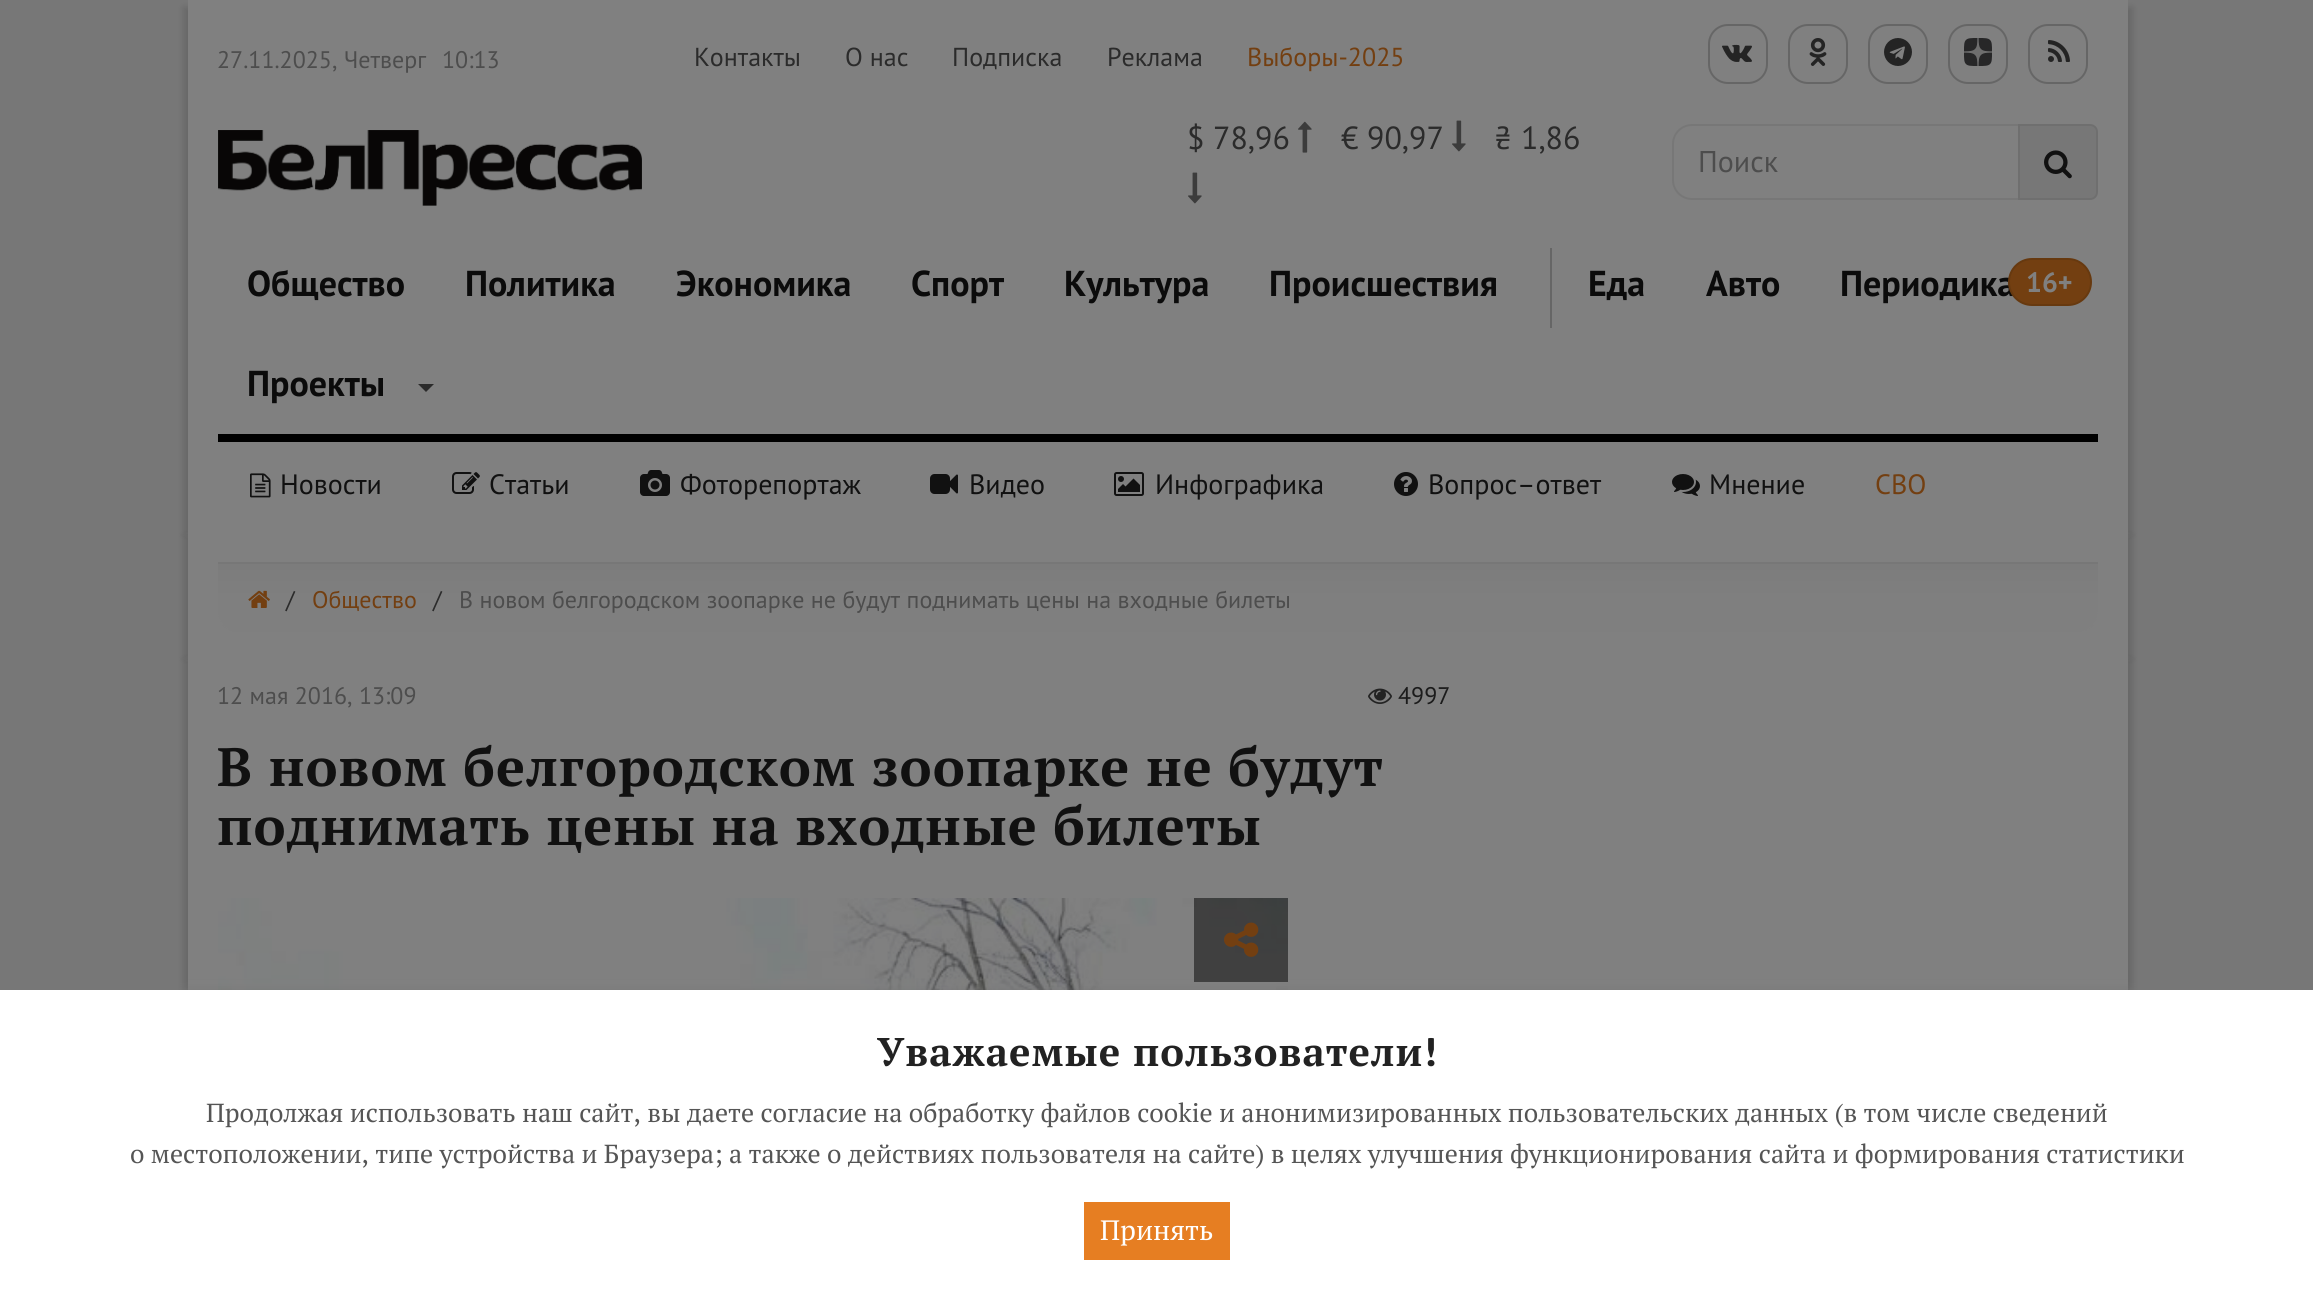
import math
import cairo

surface = cairo.ImageSurface(cairo.Format.RGB24, 2313, 1290)
ctx = cairo.Context(surface)
options = cairo.FontOptions()
options.set_hint_metrics(cairo.HintMetrics.OFF)
options.set_hint_style(cairo.HintStyle.NONE)
ctx.set_font_options(options)
ctx.set_miter_limit(4)


def ink(r, g, b):
    ctx.set_source_rgb(r / 255, g / 255, b / 255)


def write(x, y, s, family, size, color, bold=False, italic=False):
    ctx.select_font_face(family, cairo.FontSlant.ITALIC if italic else cairo.FontSlant.NORMAL, cairo.FontWeight.BOLD if bold else cairo.FontWeight.NORMAL)
    ctx.set_font_size(size)
    ink(*color)
    ctx.move_to(x, y)
    ctx.show_text(s)


def write_spaced(x, y, s, letter, word):
    ctx.move_to(x, y)
    for ch in s:
        ctx.show_text(ch)
        ctx.rel_move_to(letter + word * (ch == ' '), 0)


def block(x, y, w, h, *color):
    ink(*color)
    ctx.rectangle(x, y, w, h)
    ctx.fill()


def round_path(x, y, w, h, r):
    ctx.new_sub_path()
    for i, (u, v) in enumerate([(x + w - r, y + h - r), (x + r, y + h - r), (x + r, y + r), (x + w - r, y + r)]):
        ctx.arc(u, v, r, i * math.pi / 2, (i + 1) * math.pi / 2)
    ctx.close_path()


def blur_box(x, y, w, h, r, blur, alpha):
    ctx.push_group_with_content(cairo.Content.ALPHA)
    ctx.set_operator(cairo.Operator.SOURCE)
    for i in range(15, -16, -2):
        e = blur * i / 6
        if min(w, h) + 2 * e > 0:
            ctx.set_source_rgba(0, 0, 0, alpha * math.erfc((i - 1) / 8.5) / 2)
            round_path(x - e, y - e, w + 2 * e, h + 2 * e, max(0, min(r + e + blur * .6, min(w, h) / 2 + e)))
            ctx.fill()
    ctx.mask(ctx.pop_group())


def paste(path, x, y, w, h):
    ctx.save()
    ctx.set_source_surface(cairo.ImageSurface.create_from_png(path), x, y)
    ctx.rectangle(x, y, w, h)
    ctx.fill()
    ctx.restore()


s1 = dict(family="PT Sans", size=24, color=(77, 77, 77))
s2 = dict(family="PT Sans", size=26, color=(43, 43, 43))
s3 = dict(family="PT Sans", size=26, color=(115, 63, 17))
s4 = dict(family="PT Sans", size=32, color=(43, 43, 43))
s5 = dict(family="PT Sans", size=30, color=(77, 77, 77))
s6 = dict(family="PT Sans", size=36, color=(11, 11, 11), bold=True)
s7 = dict(family="PT Sans", size=28, color=(128, 128, 128), bold=True)
s8 = dict(family="PT Sans", size=28, color=(17, 17, 17))
s9 = dict(family="PT Sans", size=28, color=(115, 63, 17))
s10 = dict(family="PT Sans", size=24, color=(43, 43, 43))
s11 = dict(family="PT Sans", size=24, color=(115, 63, 17))
s12 = dict(family="PT Sans", size=24, color=(27, 27, 27))
s13 = dict(family="PT Serif", size=26.1, color=(85, 85, 85))
s14 = dict(family="PT Serif", size=28, color=(255, 255, 255))

ink(119, 119, 119)
ctx.paint()
ink(0, 0, 0)
blur_box(184, 536, 1924, 122, 0, 4, 0.15)
blur_box(208, 536, 1924, 122, 0, 4, 0.15)
block(188, 542, 1940, 110, 128, 128, 128)
ink(0, 0, 0)
blur_box(184, 8, 1924, 526, 0, 4, 0.15)
blur_box(208, 8, 1924, 526, 0, 4, 0.15)
block(188, 0, 1940, 542, 128, 128, 128)
write(217, 68, "27.11.2025, Четверг", **s1)
write(442, 68, "10:13", **s1)
write(694, 66, "Контакты", **s2)
write(845, 66, "О нас", **s2)
write(952, 66, "Подписка", **s2)
write(1107, 66, "Реклама", **s2)
write(1247, 66, "Выборы-2025", **s3)
round_path(1709, 25, 58, 58, 19)
ink(102, 102, 102)
ctx.stroke()
paste("pic1.png", 1722, 44, 30, 18)
round_path(1789, 25, 58, 58, 19)
ctx.stroke()
paste("pic2.png", 1809, 38, 18, 28)
round_path(1869, 25, 58, 58, 19)
ctx.stroke()
paste("pic3.png", 1884, 38, 28, 28)
round_path(1949, 25, 58, 58, 19)
ctx.stroke()
paste("pic4.png", 1964, 38, 28, 28)
round_path(2029, 25, 58, 58, 19)
ctx.stroke()
paste("pic5.png", 2048, 40, 22, 22)
paste("pic6.png", 218, 130, 424, 76)
write(1187, 149, "$ 78,96", **s4)
paste("pic7.png", 1298, 121, 14, 32)
write(1341, 149, "€ 90,97", **s4)
paste("pic8.png", 1452, 120, 14, 32)
write(1495, 149, "₴ 1,86", **s4)
paste("pic8.png", 1188, 172, 14, 32)
ink(119, 119, 119)
ctx.set_fill_rule(cairo.FillRule.EVEN_ODD)
ctx.new_path()
ctx.move_to(1692, 124)
ctx.line_to(2018, 124)
ctx.line_to(2018, 200)
ctx.line_to(1692, 200)
ctx.curve_to(1681, 200, 1672, 191, 1672, 180)
ctx.line_to(1672, 144)
ctx.curve_to(1672, 133, 1681, 124, 1692, 124)
ctx.close_path()
ctx.move_to(1692, 126)
ctx.line_to(2018, 126)
ctx.line_to(2018, 198)
ctx.line_to(1692, 198)
ctx.curve_to(1682, 198, 1674, 190, 1674, 180)
ctx.line_to(1674, 144)
ctx.curve_to(1674, 134, 1682, 126, 1692, 126)
ctx.close_path()
ctx.fill()
write(1698, 172, "Поиск", **s5)
ink(119, 119, 119)
ctx.new_path()
ctx.move_to(2018, 124)
ctx.line_to(2090, 124)
ctx.curve_to(2094.5, 124, 2098, 127.5, 2098, 132)
ctx.line_to(2098, 192)
ctx.curve_to(2098, 196.5, 2094.5, 200, 2090, 200)
ctx.line_to(2018, 200)
ctx.close_path()
ctx.fill()
ctx.new_path()
ctx.move_to(2019, 125)
ctx.line_to(2090, 125)
ctx.curve_to(2094, 125, 2097, 128, 2097, 132)
ctx.line_to(2097, 192)
ctx.curve_to(2097, 196, 2094, 199, 2090, 199)
ctx.line_to(2019, 199)
ctx.close_path()
ctx.set_source_rgba(0, 0, 0, 0.07)
ctx.stroke()
paste("pic9.png", 2044, 150, 28, 29)
block(218, 434, 1880, 8, 0, 0, 0)
write(247, 296, "Общество", **s6)
write(465, 296, "Политика", **s6)
write(676, 296, "Экономика", **s6)
write(911, 296, "Спорт", **s6)
write(1064, 296, "Культура", **s6)
write(1269, 296, "Происшествия", **s6)
block(1550, 248, 2, 80, 102, 102, 102)
write(1588, 296, "Еда", **s6)
write(1706, 296, "Авто", **s6)
write(1840, 296, "Периодика", **s6)
write(247, 396, "Проекты", **s6)
ink(43, 43, 43)
ctx.set_fill_rule(cairo.FillRule.WINDING)
ctx.new_path()
ctx.move_to(418, 384)
ctx.line_to(434, 384)
ctx.line_to(426, 392)
ctx.close_path()
ctx.fill()
ink(115, 63, 17)
round_path(2009, 259, 82, 46, 23)
ctx.fill_preserve()
ink(103, 57, 15)
ctx.stroke()
write(2026, 292, "16+", **s7)
paste("pic10.png", 250, 473, 21, 25)
write(280, 494, "Новости", **s8)
paste("pic11.png", 452, 472, 28, 22)
write(489, 494, "Статьи", **s8)
paste("pic12.png", 640, 470, 30, 26)
write(680, 494, "Фоторепортаж", **s8)
paste("pic13.png", 930, 474, 28, 20)
write(969, 494, "Видео", **s8)
paste("pic14.png", 1114, 472, 30, 24)
write(1155, 494, "Инфографика", **s8)
paste("pic15.png", 1394, 472, 24, 24)
write(1428, 494, "Вопрос–ответ", **s8)
paste("pic16.png", 1672, 474, 28, 22)
write(1709, 494, "Мнение", **s8)
write(1875, 494, "СВО", **s9)
gradient = cairo.LinearGradient(1158, 632, 1158, 564)
gradient.add_color_stop_rgba(0, 0.498, 0.498, 0.498, 1)
gradient.add_color_stop_rgba(0.5, 0.498, 0.498, 0.498, 1)
gradient.add_color_stop_rgba(1, 0.486, 0.486, 0.486, 1)
ctx.set_source(gradient)
ctx.new_path()
ctx.move_to(218, 564)
ctx.line_to(2098, 564)
ctx.line_to(2098, 612)
ctx.curve_to(2098, 623, 2089, 632, 2078, 632)
ctx.line_to(238, 632)
ctx.curve_to(227, 632, 218, 623, 218, 612)
ctx.close_path()
ctx.fill()
block(218, 562, 1880, 2, 119, 119, 119)
paste("pic17.png", 248, 590, 22, 18)
write(286, 608, "/", **s10)
write(312, 608, "Общество", **s11)
write(433, 608, "/", **s10)
write(459, 608, "В новом белгородском зоопарке не будут поднимать цены на входные билеты", **s1)
ink(0, 0, 0)
blur_box(184, 660, 1924, 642, 0, 4, 0.15)
blur_box(208, 660, 1924, 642, 0, 4, 0.15)
block(188, 652, 1940, 338, 128, 128, 128)
write(217, 704, "12 мая 2016, 13:09", **s1)
paste("pic18.png", 1368, 688, 24, 16)
write(1398, 704, "4997", **s12)
ctx.select_font_face("PT Serif", cairo.FontSlant.NORMAL, cairo.FontWeight.BOLD)
ctx.set_font_size(54)
ink(17, 17, 17)
write_spaced(217, 786, "В новом белгородском зоопарке не будут", 1, 0)
write_spaced(217, 845, "поднимать цены на входные билеты", 1, 0)
paste("pic19.png", 218, 898, 1070, 92)
ctx.set_source_rgba(0, 0, 0, 0.5)
ctx.rectangle(1194, 898, 94, 84)
ctx.fill()
paste("pic20.png", 1224, 922, 35, 35)
ink(119, 119, 119)
blur_box(2, 992, 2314, 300, 0, 5, 1)
block(0, 990, 2313, 300, 255, 255, 255)
ctx.set_font_size(40)
ink(34, 34, 34)
write_spaced(877, 1066, "Уважаемые пользователи!", 1, 0)
write(206, 1122, "Продолжая использовать наш сайт, вы даете согласие на обработку файлов cookie и анонимизированных пользовательских данных (в том числе сведений", **s13)
write(130, 1163, "о местоположении, типе устройства и Браузера; а также о действиях пользователя на сайте) в целях улучшения функционирования сайта и формирования статистики", **s13)
block(1084, 1202, 146, 58, 230, 126, 34)
write(1100, 1240, "Принять", **s14)
surface.write_to_png("screenshot.png")
